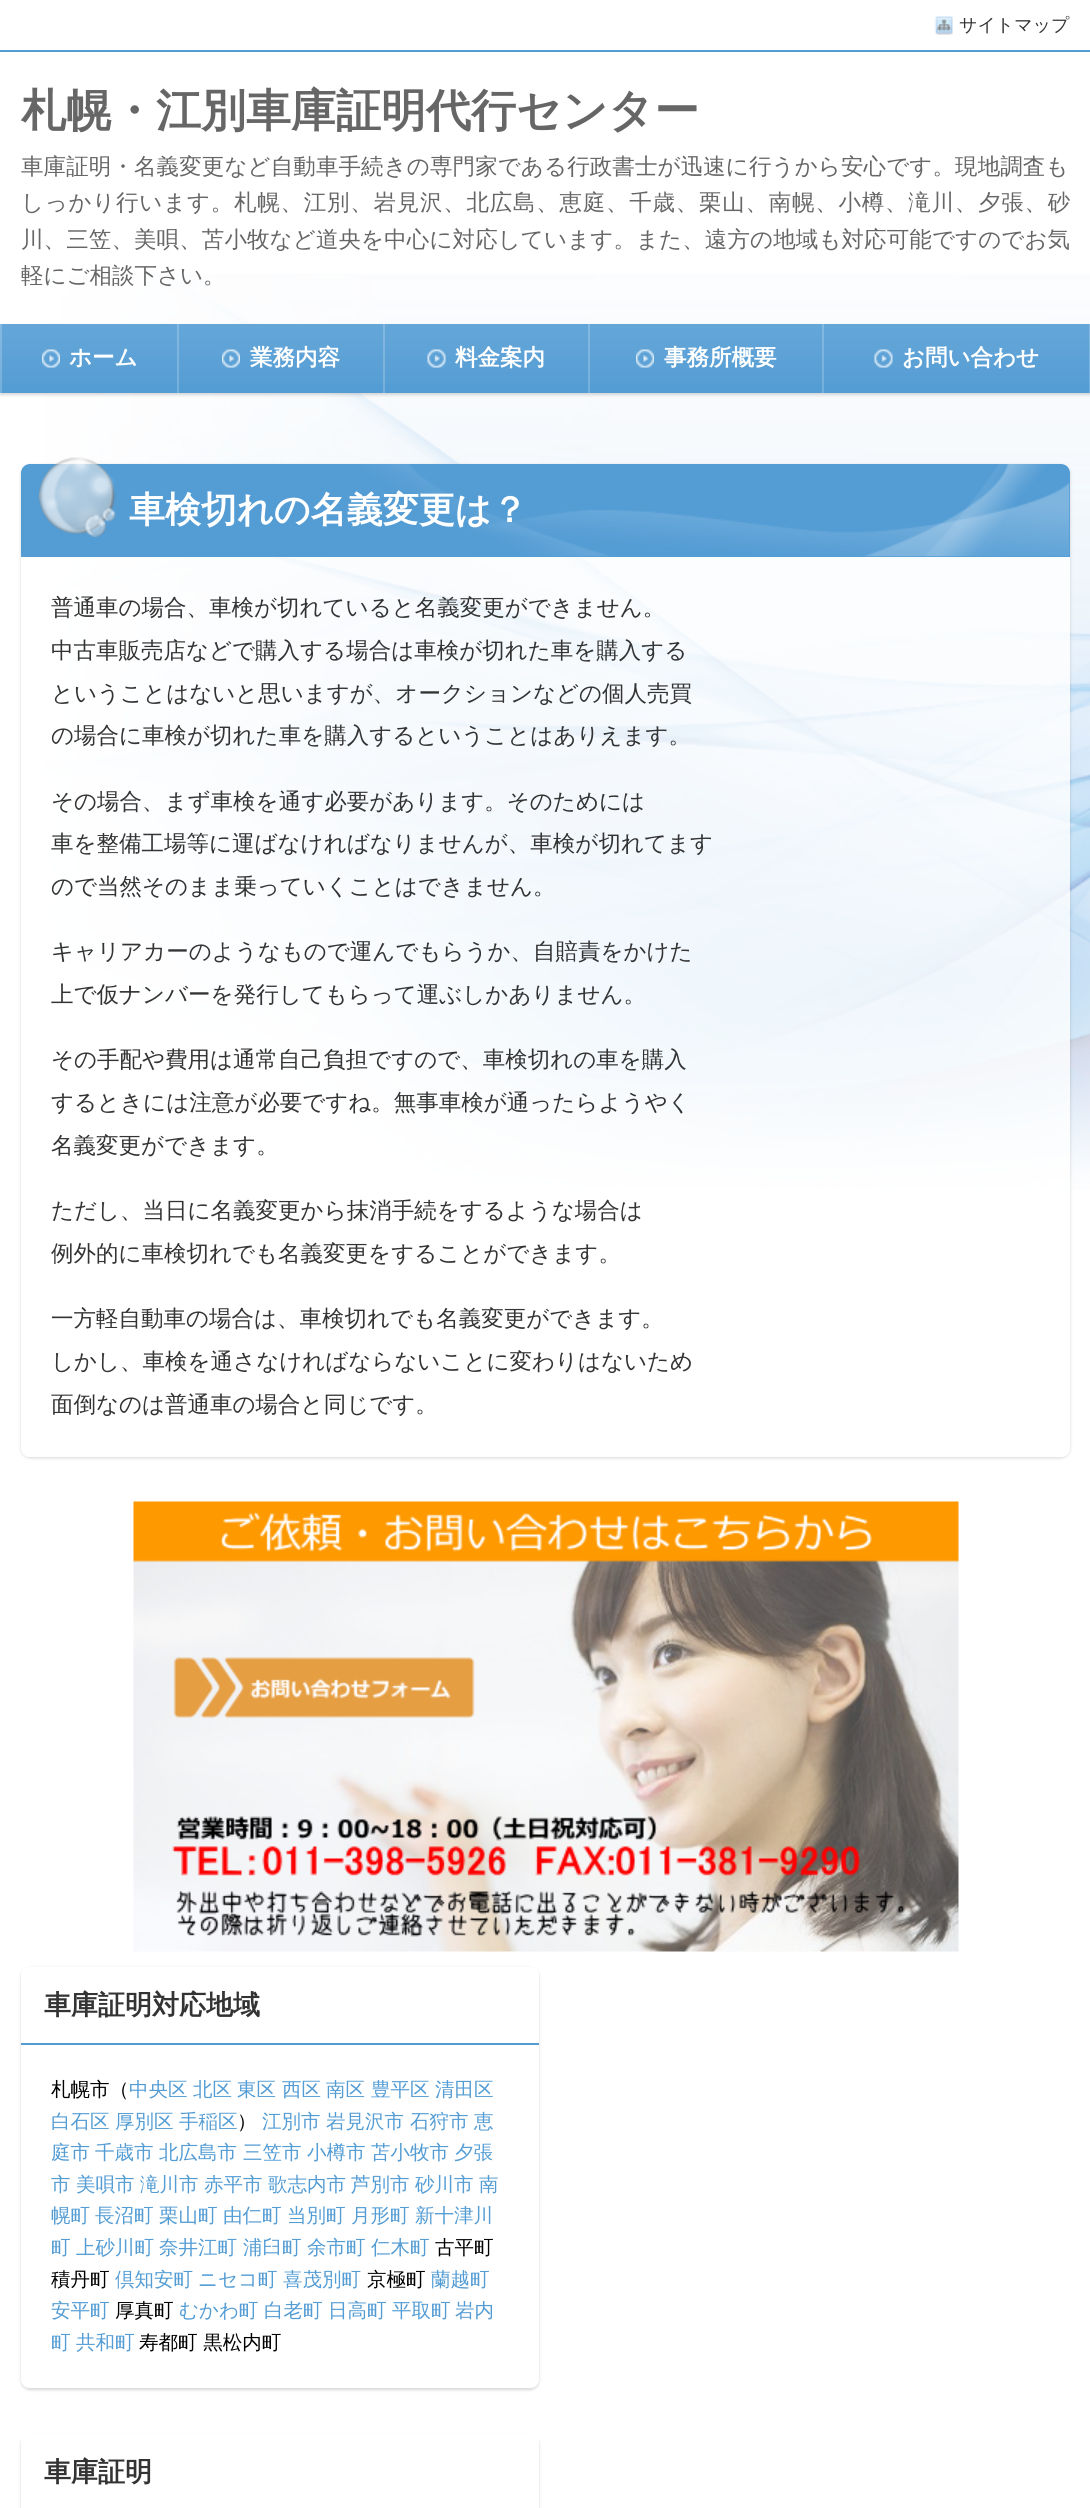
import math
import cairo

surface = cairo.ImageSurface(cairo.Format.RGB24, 1090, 2508)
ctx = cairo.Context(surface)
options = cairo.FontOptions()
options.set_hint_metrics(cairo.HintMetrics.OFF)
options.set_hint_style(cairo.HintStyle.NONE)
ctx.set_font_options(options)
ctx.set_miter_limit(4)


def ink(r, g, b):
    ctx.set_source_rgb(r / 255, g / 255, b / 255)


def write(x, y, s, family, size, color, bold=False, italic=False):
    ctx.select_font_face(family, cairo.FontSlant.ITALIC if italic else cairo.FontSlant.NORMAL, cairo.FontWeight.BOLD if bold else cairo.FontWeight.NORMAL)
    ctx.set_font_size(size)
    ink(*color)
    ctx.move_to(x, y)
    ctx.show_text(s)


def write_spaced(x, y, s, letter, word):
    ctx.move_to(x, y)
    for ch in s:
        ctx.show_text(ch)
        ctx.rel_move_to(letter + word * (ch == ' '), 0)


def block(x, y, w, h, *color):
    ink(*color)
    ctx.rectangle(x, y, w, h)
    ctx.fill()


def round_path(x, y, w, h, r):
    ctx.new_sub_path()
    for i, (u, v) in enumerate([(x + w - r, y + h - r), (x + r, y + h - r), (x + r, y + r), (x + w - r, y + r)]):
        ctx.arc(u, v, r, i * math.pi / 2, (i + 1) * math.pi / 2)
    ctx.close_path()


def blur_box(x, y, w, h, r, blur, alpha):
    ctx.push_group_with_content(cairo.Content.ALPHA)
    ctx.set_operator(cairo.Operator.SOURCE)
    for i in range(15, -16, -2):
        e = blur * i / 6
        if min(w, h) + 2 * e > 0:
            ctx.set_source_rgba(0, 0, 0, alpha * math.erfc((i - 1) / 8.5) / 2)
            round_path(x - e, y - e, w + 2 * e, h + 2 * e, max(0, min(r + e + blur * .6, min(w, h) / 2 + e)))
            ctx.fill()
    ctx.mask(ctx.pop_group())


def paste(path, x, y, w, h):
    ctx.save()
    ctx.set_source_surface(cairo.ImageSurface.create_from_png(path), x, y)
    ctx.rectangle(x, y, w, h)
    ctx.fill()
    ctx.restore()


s1 = dict(family="WenQuanYi Zen Hei Medium", size=18, color=(51, 51, 51))
s2 = dict(family="WenQuanYi Zen Hei", size=45, color=(102, 102, 102), bold=True)
s3 = dict(family="WenQuanYi Zen Hei Medium", size=22.5, color=(102, 102, 102))
s4 = dict(family="WenQuanYi Zen Hei", size=22.5, color=(255, 255, 255), bold=True)
s5 = dict(family="WenQuanYi Zen Hei", size=36, color=(255, 255, 255), bold=True)
s6 = dict(family="WenQuanYi Zen Hei Medium", size=22.5, color=(51, 51, 51))
s7 = dict(family="WenQuanYi Zen Hei", size=27, color=(51, 51, 51), bold=True)
s8 = dict(family="WenQuanYi Zen Hei Medium", size=19.5, color=(0, 0, 0))
s9 = dict(family="WenQuanYi Zen Hei Medium", size=19.5, color=(83, 156, 212))

ink(255, 255, 255)
ctx.paint()
paste("pic1.png", 43, 274, 1047, 916)
block(0, 50, 1090, 2, 83, 156, 212)
paste("pic2.png", 934, 16, 19, 19)
write(959, 31, "サイトマップ", **s1)
write(21, 126, "札幌・江別車庫証明代行センター", **s2)
ctx.select_font_face("WenQuanYi Zen Hei Medium")
ctx.set_font_size(22.5)
write_spaced(21, 174, "車庫証明・名義変更など自動車手続きの専門家である行政書士が迅速に行うから安心です。現地調査も", 0.1, 0)
write_spaced(21, 210, "しっかり行います。札幌、江別、岩見沢、北広島、恵庭、千歳、栗山、南幌、小樽、滝川、夕張、砂", 0.75, 0)
write_spaced(21, 247, "川、三笠、美唄、苫小牧など道央を中心に対応しています。また、遠方の地域も対応可能ですのでお気", 0.1, 0)
write(21, 283, "軽にご相談下さい。", **s3)
ink(0, 0, 0)
blur_box(0, 326, 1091, 69, 0, 1.5, 0.16)
block(0, 324, 1090, 69, 83, 156, 212)
paste("pic3.png", 0, 324, 1090, 60)
ctx.set_source_rgba(1, 1, 1, 0.2)
ctx.rectangle(0, 324, 2, 69)
ctx.fill()
ctx.rectangle(177, 324, 2, 69)
ctx.fill()
paste("pic4.png", 42, 349, 18, 19)
write(69, 365, "ホーム", **s4)
ctx.set_source_rgba(1, 1, 1, 0.2)
ctx.rectangle(383, 324, 2, 69)
ctx.fill()
paste("pic4.png", 222, 349, 18, 19)
write(250, 365, "業務内容", **s4)
ctx.set_source_rgba(1, 1, 1, 0.2)
ctx.rectangle(588, 324, 2, 69)
ctx.fill()
paste("pic5.png", 427, 349, 19, 19)
write(455, 365, "料金案内", **s4)
ctx.set_source_rgba(1, 1, 1, 0.2)
ctx.rectangle(822, 324, 2, 69)
ctx.fill()
paste("pic4.png", 636, 349, 18, 19)
write(664, 365, "事務所概要", **s4)
ctx.set_source_rgba(1, 1, 1, 0.2)
ctx.rectangle(1089, 324, 1, 69)
ctx.fill()
paste("pic6.png", 874, 349, 19, 19)
write(902, 365, "お問い合わせ", **s4)
ctx.save()
ctx.set_fill_rule(cairo.FillRule.EVEN_ODD)
ctx.new_path()
ctx.move_to(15, 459)
ctx.line_to(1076, 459)
ctx.line_to(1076, 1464)
ctx.line_to(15, 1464)
ctx.close_path()
ctx.move_to(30, 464)
ctx.line_to(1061, 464)
ctx.curve_to(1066, 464, 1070, 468, 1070, 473)
ctx.line_to(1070, 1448)
ctx.curve_to(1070, 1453, 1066, 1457, 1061, 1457)
ctx.line_to(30, 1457)
ctx.curve_to(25, 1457, 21, 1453, 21, 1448)
ctx.line_to(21, 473)
ctx.curve_to(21, 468, 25, 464, 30, 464)
ctx.close_path()
ctx.clip()
ink(0, 0, 0)
blur_box(21, 465, 1049, 993, 9, 1.5, 0.16)
ctx.restore()
ctx.set_source_rgba(1, 1, 1, 0.8)
round_path(21, 464, 1049, 993, 9)
ctx.fill()
ink(83, 156, 212)
ctx.new_path()
ctx.move_to(30, 464)
ctx.line_to(1061, 464)
ctx.curve_to(1066, 464, 1070, 468, 1070, 473)
ctx.line_to(1070, 557)
ctx.line_to(21, 557)
ctx.line_to(21, 473)
ctx.curve_to(21, 468, 25, 464, 30, 464)
ctx.close_path()
ctx.fill()
paste("pic7.png", 362, 464, 708, 93)
paste("pic8.png", 39, 457, 77, 80)
write(129, 522, "車検切れの名義変更は？", **s5)
write(51, 615, "普通車の場合、車検が切れていると名義変更ができません。", **s6)
write(51, 658, "中古車販売店などで購入する場合は車検が切れた車を購入する", **s6)
write(51, 701, "ということはないと思いますが、オークションなどの個人売買", **s6)
write(51, 743, "の場合に車検が切れた車を購入するということはありえます。", **s6)
write(51, 809, "その場合、まず車検を通す必要があります。そのためには", **s6)
write(51, 851, "車を整備工場等に運ばなければなりませんが、車検が切れてます", **s6)
write(51, 894, "ので当然そのまま乗っていくことはできません。", **s6)
write(51, 959, "キャリアカーのようなもので運んでもらうか、自賠責をかけた", **s6)
write(51, 1002, "上で仮ナンバーを発行してもらって運ぶしかありません。", **s6)
write(51, 1067, "その手配や費用は通常自己負担ですので、車検切れの車を購入", **s6)
write(51, 1110, "するときには注意が必要ですね。無事車検が通ったらようやく", **s6)
write(51, 1153, "名義変更ができます。", **s6)
write(51, 1218, "ただし、当日に名義変更から抹消手続をするような場合は", **s6)
write(51, 1261, "例外的に車検切れでも名義変更をすることができます。", **s6)
write(51, 1326, "一方軽自動車の場合は、車検切れでも名義変更ができます。", **s6)
write(51, 1369, "しかし、車検を通さなければならないことに変わりはないため", **s6)
write(51, 1412, "面倒なのは普通車の場合と同じです。", **s6)
paste("pic9.png", 133, 1501, 826, 451)
ctx.save()
ctx.set_fill_rule(cairo.FillRule.EVEN_ODD)
ctx.new_path()
ctx.move_to(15, 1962)
ctx.line_to(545, 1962)
ctx.line_to(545, 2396)
ctx.line_to(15, 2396)
ctx.close_path()
ctx.move_to(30, 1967)
ctx.line_to(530, 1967)
ctx.curve_to(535, 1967, 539, 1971, 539, 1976)
ctx.line_to(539, 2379)
ctx.curve_to(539, 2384, 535, 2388, 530, 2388)
ctx.line_to(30, 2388)
ctx.curve_to(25, 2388, 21, 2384, 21, 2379)
ctx.line_to(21, 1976)
ctx.curve_to(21, 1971, 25, 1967, 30, 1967)
ctx.close_path()
ctx.clip()
ink(0, 0, 0)
blur_box(21, 1968, 518, 422, 9, 1.5, 0.16)
ctx.restore()
ctx.set_source_rgba(1, 1, 1, 0.8)
round_path(21, 1967, 518, 421, 9)
ctx.fill()
block(21, 2043, 518, 2, 83, 156, 212)
write(44, 2014, "車庫証明対応地域", **s7)
write(51, 2096, "札幌市（", **s8)
write(129, 2096, "中央区", **s9)
write(193, 2096, "北区", **s9)
write(237, 2096, "東区", **s9)
write(282, 2096, "西区", **s9)
write(326, 2096, "南区", **s9)
write(371, 2096, "豊平区", **s9)
write(435, 2096, "清田区", **s9)
write(51, 2128, "白石区", **s9)
write(115, 2128, "厚別区", **s9)
write(179, 2128, "手稲区", **s9)
write(237, 2128, "）", **s8)
write(262, 2128, "江別市", **s9)
write(326, 2128, "岩見沢市", **s9)
write(410, 2128, "石狩市", **s9)
write(474, 2128, "恵", **s9)
write(51, 2159, "庭市", **s9)
write(95, 2159, "千歳市", **s9)
write(159, 2159, "北広島市", **s9)
write(243, 2159, "三笠市", **s9)
write(307, 2159, "小樽市", **s9)
write(371, 2159, "苫小牧市", **s9)
write(454, 2159, "夕張", **s9)
write(51, 2191, "市", **s9)
write(76, 2191, "美唄市", **s9)
write(140, 2191, "滝川市", **s9)
write(204, 2191, "赤平市", **s9)
write(268, 2191, "歌志内市", **s9)
write(351, 2191, "芦別市", **s9)
write(415, 2191, "砂川市", **s9)
write(479, 2191, "南", **s9)
write(51, 2222, "幌町", **s9)
write(95, 2222, "長沼町", **s9)
write(159, 2222, "栗山町", **s9)
write(223, 2222, "由仁町", **s9)
write(287, 2222, "当別町", **s9)
write(351, 2222, "月形町", **s9)
write(415, 2222, "新十津川", **s9)
write(51, 2254, "町", **s9)
write(76, 2254, "上砂川町", **s9)
write(159, 2254, "奈井江町", **s9)
write(243, 2254, "浦臼町", **s9)
write(307, 2254, "余市町", **s9)
write(371, 2254, "仁木町", **s9)
write(435, 2254, "古平町", **s8)
write(51, 2286, "積丹町", **s8)
write(115, 2286, "倶知安町", **s9)
write(198, 2286, "ニセコ町", **s9)
write(283, 2286, "喜茂別町", **s9)
write(367, 2286, "京極町", **s8)
write(431, 2286, "蘭越町", **s9)
write(51, 2317, "安平町", **s9)
write(115, 2317, "厚真町", **s8)
write(179, 2317, "むかわ町", **s9)
write(264, 2317, "白老町", **s9)
write(328, 2317, "日高町", **s9)
write(392, 2317, "平取町", **s9)
write(455, 2317, "岩内", **s9)
write(51, 2349, "町", **s9)
write(76, 2349, "共和町", **s9)
write(139, 2349, "寿都町 黒松内町", **s8)
ctx.save()
ctx.set_fill_rule(cairo.FillRule.EVEN_ODD)
ctx.new_path()
ctx.move_to(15, 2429)
ctx.line_to(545, 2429)
ctx.line_to(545, 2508)
ctx.line_to(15, 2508)
ctx.close_path()
ctx.move_to(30, 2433)
ctx.line_to(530, 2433)
ctx.curve_to(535, 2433, 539, 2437, 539, 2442)
ctx.line_to(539, 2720)
ctx.curve_to(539, 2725, 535, 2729, 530, 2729)
ctx.line_to(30, 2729)
ctx.curve_to(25, 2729, 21, 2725, 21, 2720)
ctx.line_to(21, 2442)
ctx.curve_to(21, 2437, 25, 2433, 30, 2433)
ctx.close_path()
ctx.clip()
ink(0, 0, 0)
blur_box(21, 2435, 518, 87, 9, 1.5, 0.16)
ctx.restore()
ctx.set_source_rgba(1, 1, 1, 0.8)
round_path(21, 2433, 518, 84, 9)
ctx.fill()
write(44, 2481, "車庫証明", **s7)
surface.write_to_png("screenshot.png")
